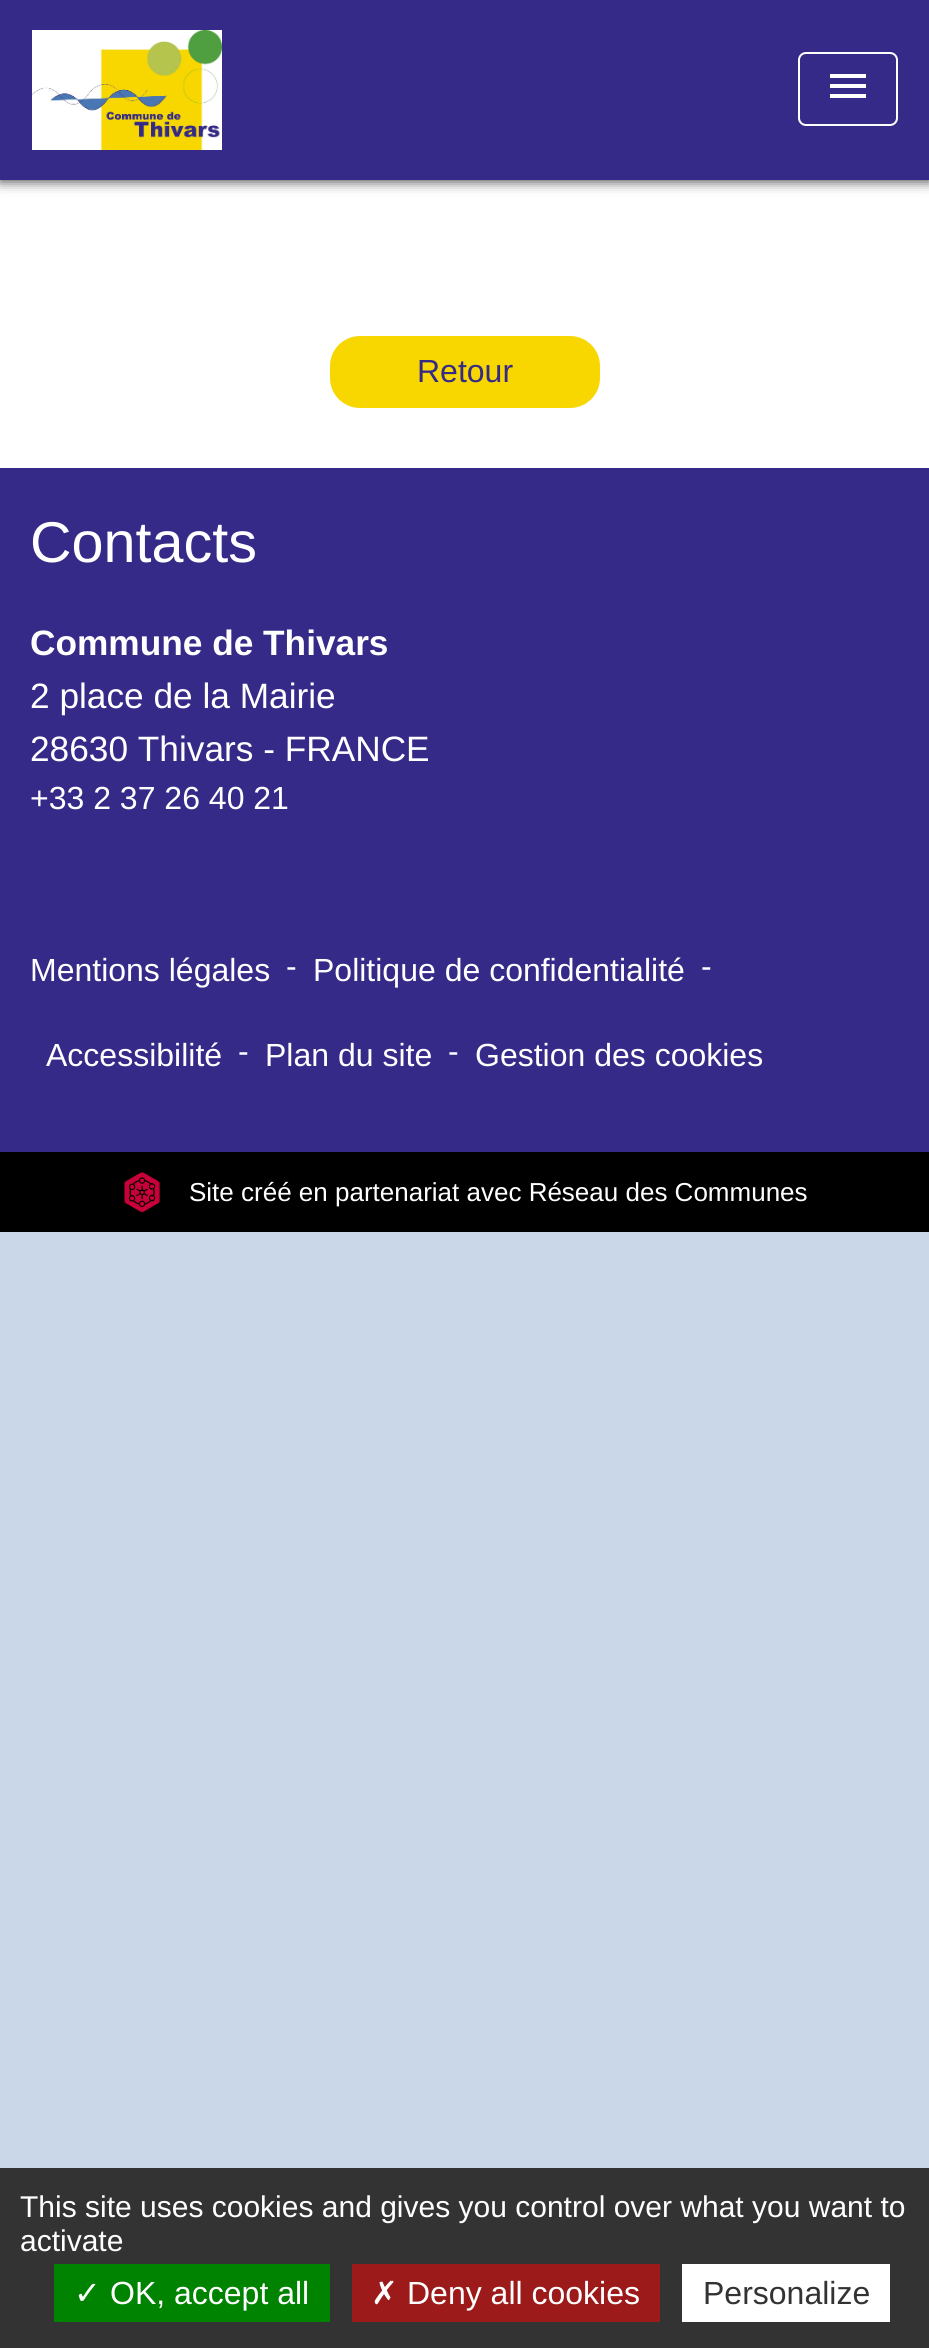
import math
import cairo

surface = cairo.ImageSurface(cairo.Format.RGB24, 929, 2348)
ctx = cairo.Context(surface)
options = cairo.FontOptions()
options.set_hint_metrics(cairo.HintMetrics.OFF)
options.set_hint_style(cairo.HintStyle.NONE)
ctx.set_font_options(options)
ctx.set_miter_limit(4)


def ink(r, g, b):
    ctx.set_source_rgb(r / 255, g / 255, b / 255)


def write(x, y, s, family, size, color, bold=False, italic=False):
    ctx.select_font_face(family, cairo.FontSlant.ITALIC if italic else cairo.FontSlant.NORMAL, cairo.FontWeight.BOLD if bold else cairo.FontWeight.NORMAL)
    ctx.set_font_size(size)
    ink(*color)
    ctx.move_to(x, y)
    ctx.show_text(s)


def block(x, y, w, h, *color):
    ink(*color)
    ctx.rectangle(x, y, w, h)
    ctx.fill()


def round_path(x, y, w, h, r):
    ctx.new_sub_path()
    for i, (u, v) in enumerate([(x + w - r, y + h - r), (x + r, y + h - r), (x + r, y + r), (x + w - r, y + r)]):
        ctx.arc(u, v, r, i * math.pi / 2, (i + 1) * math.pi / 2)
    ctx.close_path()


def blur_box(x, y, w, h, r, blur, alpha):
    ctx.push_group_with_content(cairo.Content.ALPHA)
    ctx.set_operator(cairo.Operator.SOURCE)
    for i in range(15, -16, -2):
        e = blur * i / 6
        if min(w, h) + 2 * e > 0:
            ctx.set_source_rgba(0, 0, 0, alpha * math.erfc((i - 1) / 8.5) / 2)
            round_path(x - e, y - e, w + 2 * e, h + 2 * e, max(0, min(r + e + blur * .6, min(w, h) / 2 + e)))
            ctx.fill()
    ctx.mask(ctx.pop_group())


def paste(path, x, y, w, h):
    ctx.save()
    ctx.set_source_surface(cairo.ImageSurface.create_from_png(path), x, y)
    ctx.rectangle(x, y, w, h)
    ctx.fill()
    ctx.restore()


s1 = dict(family="Liberation Sans", size=32, color=(53, 42, 136))
s2 = dict(family="Liberation Sans", size=57.5, color=(255, 255, 255))
s3 = dict(family="Liberation Sans", size=35.25, color=(255, 255, 255), bold=True)
s4 = dict(family="Liberation Sans", size=35.25, color=(255, 255, 255))
s5 = dict(family="Liberation Sans", size=32, color=(255, 255, 255))
s6 = dict(family="Liberation Sans", size=26, color=(255, 255, 255))
s7 = dict(family="Liberation Sans", size=30, color=(255, 255, 255))
s8 = dict(family="DejaVu Sans", size=32, color=(255, 255, 255))
s9 = dict(family="Liberation Sans", size=32, color=(51, 51, 51))

ink(201, 215, 233)
ctx.paint()
block(0, 180, 929, 288, 255, 255, 255)
ink(83, 83, 83)
blur_box(0, 2, 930, 180, 0, 6, 1)
block(0, 0, 929, 180, 53, 42, 136)
paste("pic1.png", 32, 30, 190, 120)
round_path(799, 53, 98, 72, 7)
ink(255, 255, 255)
ctx.stroke()
ctx.new_path()
ctx.move_to(830, 74)
ctx.line_to(866, 74)
ctx.line_to(866, 78)
ctx.line_to(830, 78)
ctx.close_path()
ctx.move_to(830, 88)
ctx.line_to(830, 84)
ctx.line_to(866, 84)
ctx.line_to(866, 88)
ctx.close_path()
ctx.move_to(830, 98)
ctx.line_to(830, 94)
ctx.line_to(866, 94)
ctx.line_to(866, 98)
ctx.close_path()
ctx.fill()
ink(248, 215, 0)
round_path(330, 336, 270, 72, 30)
ctx.fill()
write(417, 382, "Retour", **s1)
block(0, 468, 929, 684, 53, 42, 136)
write(30, 562, "Contacts", **s2)
write(30, 655, "Commune de Thivars", **s3)
write(30, 708, "2 place de la Mairie", **s4)
write(30, 761, "28630 Thivars - FRANCE", **s4)
write(30, 809, "+33 2 37 26 40 21", **s5)
write(30, 981, "Mentions légales", **s5)
write(286, 977, "-", **s5)
write(313, 981, "Politique de confidentialité", **s5)
write(701, 977, "-", **s5)
write(46, 1066, "Accessibilité", **s5)
write(238, 1062, "-", **s5)
write(265, 1066, "Plan du site", **s5)
write(448, 1062, "-", **s5)
write(475, 1066, "Gestion des cookies", **s5)
block(0, 1152, 929, 80, 0, 0, 0)
paste("pic2.png", 124, 1172, 36, 40)
write(189, 1201, "Site créé en partenariat avec Réseau des Communes", **s6)
block(0, 2168, 929, 180, 51, 51, 51)
write(20, 2217, "This site uses cookies and gives you control over what you want to", **s7)
write(20, 2251, "activate", **s7)
block(54, 2264, 276, 58, 0, 131, 0)
write(74, 2304, "✓", **s8)
write(110, 2304, "OK, accept all", **s5)
block(352, 2264, 308, 58, 156, 26, 26)
write(371, 2304, "✗", **s8)
write(407, 2304, "Deny all cookies", **s5)
block(682, 2264, 208, 58, 255, 255, 255)
write(703, 2304, "Personalize", **s9)
surface.write_to_png("screenshot.png")
